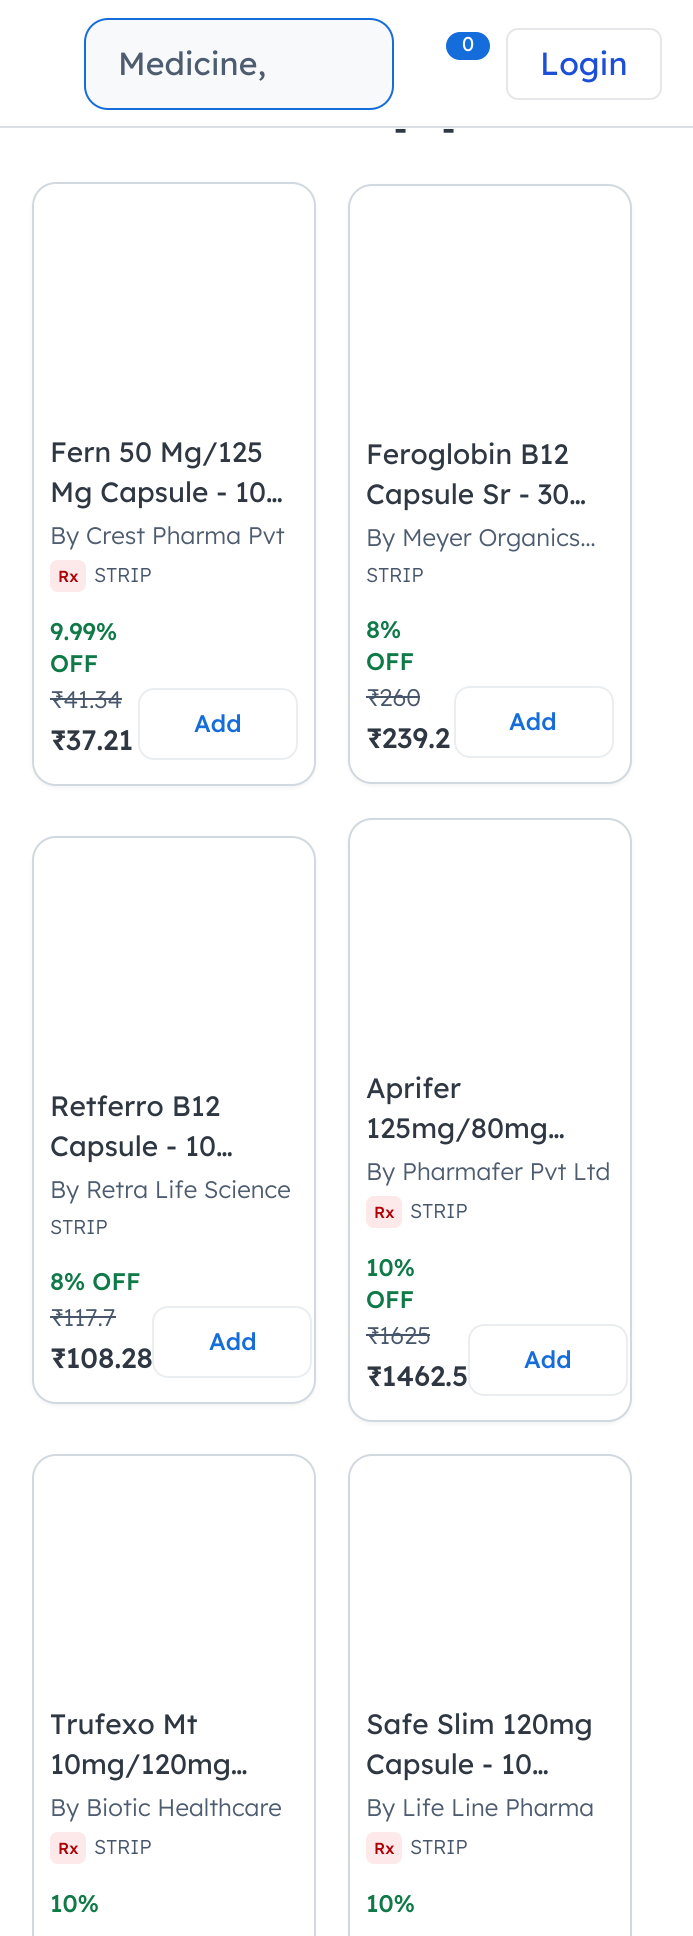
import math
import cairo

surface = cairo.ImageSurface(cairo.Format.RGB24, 693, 1936)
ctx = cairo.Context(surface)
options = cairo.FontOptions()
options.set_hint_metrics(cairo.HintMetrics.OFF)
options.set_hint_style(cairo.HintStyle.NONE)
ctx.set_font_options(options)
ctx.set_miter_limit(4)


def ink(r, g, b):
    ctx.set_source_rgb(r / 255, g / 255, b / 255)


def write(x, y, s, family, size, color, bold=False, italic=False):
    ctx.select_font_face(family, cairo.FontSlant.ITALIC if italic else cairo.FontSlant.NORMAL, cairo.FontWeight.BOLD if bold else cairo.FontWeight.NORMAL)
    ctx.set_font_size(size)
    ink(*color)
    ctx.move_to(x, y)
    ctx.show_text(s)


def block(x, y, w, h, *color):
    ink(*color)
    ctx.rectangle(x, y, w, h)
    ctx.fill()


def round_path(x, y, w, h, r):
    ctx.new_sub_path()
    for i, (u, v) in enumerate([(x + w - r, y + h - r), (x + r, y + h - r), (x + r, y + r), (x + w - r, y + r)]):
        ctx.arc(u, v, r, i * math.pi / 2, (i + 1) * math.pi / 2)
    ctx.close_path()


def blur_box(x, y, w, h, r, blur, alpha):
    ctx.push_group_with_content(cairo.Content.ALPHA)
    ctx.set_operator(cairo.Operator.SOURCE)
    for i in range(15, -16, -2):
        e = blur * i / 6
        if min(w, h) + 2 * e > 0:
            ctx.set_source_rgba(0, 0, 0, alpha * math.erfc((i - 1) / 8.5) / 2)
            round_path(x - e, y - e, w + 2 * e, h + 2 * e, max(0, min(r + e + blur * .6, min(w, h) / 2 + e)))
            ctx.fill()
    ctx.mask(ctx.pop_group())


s1 = dict(family="Lexend Deca", size=32, color=(77, 92, 111))
s2 = dict(family="Lexend Deca", size=20, color=(255, 255, 255))
s3 = dict(family="Lexend Deca", size=32, color=(29, 78, 216))
s4 = dict(family="Lexend Deca Medium", size=32, color=(46, 55, 66))
s5 = dict(family="Lexend Deca", size=28, color=(46, 55, 66))
s6 = dict(family="Lexend Deca Light", size=24, color=(77, 92, 111))
s7 = dict(family="Lexend Deca Medium", size=16, color=(174, 0, 6))
s8 = dict(family="Lexend Deca Light", size=20, color=(71, 86, 106))
s9 = dict(family="Lexend Deca Medium", size=24, color=(15, 122, 72))
s10 = dict(family="Lexend Deca Light", size=24, color=(71, 86, 106))
s11 = dict(family="Lexend Deca Medium", size=28, color=(46, 55, 66))
s12 = dict(family="Lexend Deca Medium", size=24, color=(21, 109, 220))

ink(255, 255, 255)
ctx.paint()
block(0, 126, 693, 2, 219, 224, 230)
ink(247, 249, 250)
round_path(85, 19, 308, 90, 23)
ctx.fill_preserve()
ink(21, 109, 220)
ctx.stroke()
write(118, 75, "Medicine,", **s1)
ink(21, 109, 220)
round_path(445, 31, 46, 30, 15)
ctx.fill_preserve()
ink(255, 255, 255)
ctx.stroke()
write(462, 51, "0", **s2)
round_path(507, 29, 154, 70, 11)
ink(229, 231, 235)
ctx.stroke()
write(540, 75, "Login", **s3)
write(394, 140, "-", **s4)
write(442, 140, "-", **s4)
ink(0, 0, 0)
blur_box(32, 184, 284, 604, 24, 2, 0.05)
ink(255, 255, 255)
round_path(33, 183, 282, 602, 23)
ctx.fill_preserve()
ink(210, 216, 224)
ctx.stroke()
write(50, 462, "Fern 50 Mg/125", **s5)
write(50, 502, "Mg Capsule - 10…", **s5)
write(50, 544, "By Crest Pharma Pvt", **s6)
ink(254, 233, 234)
round_path(50, 560, 36, 32, 8)
ctx.fill()
write(58, 582, "Rx", **s7)
write(94, 582, "STRIP", **s8)
write(50, 640, "9.99%", **s9)
write(50, 672, "OFF", **s9)
write(50, 708, "₹41.34", **s10)
block(50, 698, 72, 2, 71, 86, 106)
write(50, 750, "₹37.21", **s11)
round_path(139, 689, 158, 70, 15)
ink(235, 238, 241)
ctx.stroke()
write(194, 732, "Add", **s12)
ink(0, 0, 0)
blur_box(348, 186, 284, 600, 24, 2, 0.05)
ink(255, 255, 255)
round_path(349, 185, 282, 598, 23)
ctx.fill_preserve()
ink(210, 216, 224)
ctx.stroke()
write(366, 464, "Feroglobin B12", **s5)
write(366, 504, "Capsule Sr - 30…", **s5)
write(366, 546, "By Meyer Organics…", **s6)
write(366, 582, "STRIP", **s8)
write(366, 638, "8%", **s9)
write(366, 670, "OFF", **s9)
write(366, 706, "₹260", **s10)
block(366, 696, 54, 2, 71, 86, 106)
write(366, 748, "₹239.2", **s11)
round_path(455, 687, 158, 70, 15)
ink(235, 238, 241)
ctx.stroke()
write(509, 730, "Add", **s12)
ink(0, 0, 0)
blur_box(32, 838, 284, 568, 24, 2, 0.05)
ink(255, 255, 255)
round_path(33, 837, 282, 566, 23)
ctx.fill_preserve()
ink(210, 216, 224)
ctx.stroke()
write(50, 1116, "Retferro B12", **s5)
write(50, 1156, "Capsule - 10…", **s5)
write(50, 1198, "By Retra Life Science", **s6)
write(50, 1234, "STRIP", **s8)
write(50, 1290, "8% OFF", **s9)
write(50, 1326, "₹117.7", **s10)
block(50, 1316, 66, 2, 71, 86, 106)
write(50, 1368, "₹108.28", **s11)
round_path(153, 1307, 158, 70, 15)
ink(235, 238, 241)
ctx.stroke()
write(209, 1350, "Add", **s12)
ink(0, 0, 0)
blur_box(348, 820, 284, 604, 24, 2, 0.05)
ink(255, 255, 255)
round_path(349, 819, 282, 602, 23)
ctx.fill_preserve()
ink(210, 216, 224)
ctx.stroke()
write(366, 1098, "Aprifer", **s5)
write(366, 1138, "125mg/80mg…", **s5)
write(366, 1180, "By Pharmafer Pvt Ltd", **s6)
ink(254, 233, 234)
round_path(366, 1196, 36, 32, 8)
ctx.fill()
write(374, 1218, "Rx", **s7)
write(410, 1218, "STRIP", **s8)
write(366, 1276, "10%", **s9)
write(366, 1308, "OFF", **s9)
write(366, 1344, "₹1625", **s10)
block(366, 1334, 64, 2, 71, 86, 106)
write(366, 1386, "₹1462.5", **s11)
round_path(469, 1325, 158, 70, 15)
ink(235, 238, 241)
ctx.stroke()
write(524, 1368, "Add", **s12)
round_path(33, 1455, 282, 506, 23)
ink(210, 216, 224)
ctx.stroke()
write(50, 1734, "Trufexo Mt", **s5)
write(50, 1774, "10mg/120mg…", **s5)
write(50, 1816, "By Biotic Healthcare", **s6)
ink(254, 233, 234)
round_path(50, 1832, 36, 32, 8)
ctx.fill()
write(58, 1854, "Rx", **s7)
write(94, 1854, "STRIP", **s8)
write(50, 1912, "10%", **s9)
round_path(349, 1455, 282, 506, 23)
ink(210, 216, 224)
ctx.stroke()
write(366, 1734, "Safe Slim 120mg", **s5)
write(366, 1774, "Capsule - 10…", **s5)
write(366, 1816, "By Life Line Pharma", **s6)
ink(254, 233, 234)
round_path(366, 1832, 36, 32, 8)
ctx.fill()
write(374, 1854, "Rx", **s7)
write(410, 1854, "STRIP", **s8)
write(366, 1912, "10%", **s9)
surface.write_to_png("screenshot.png")
